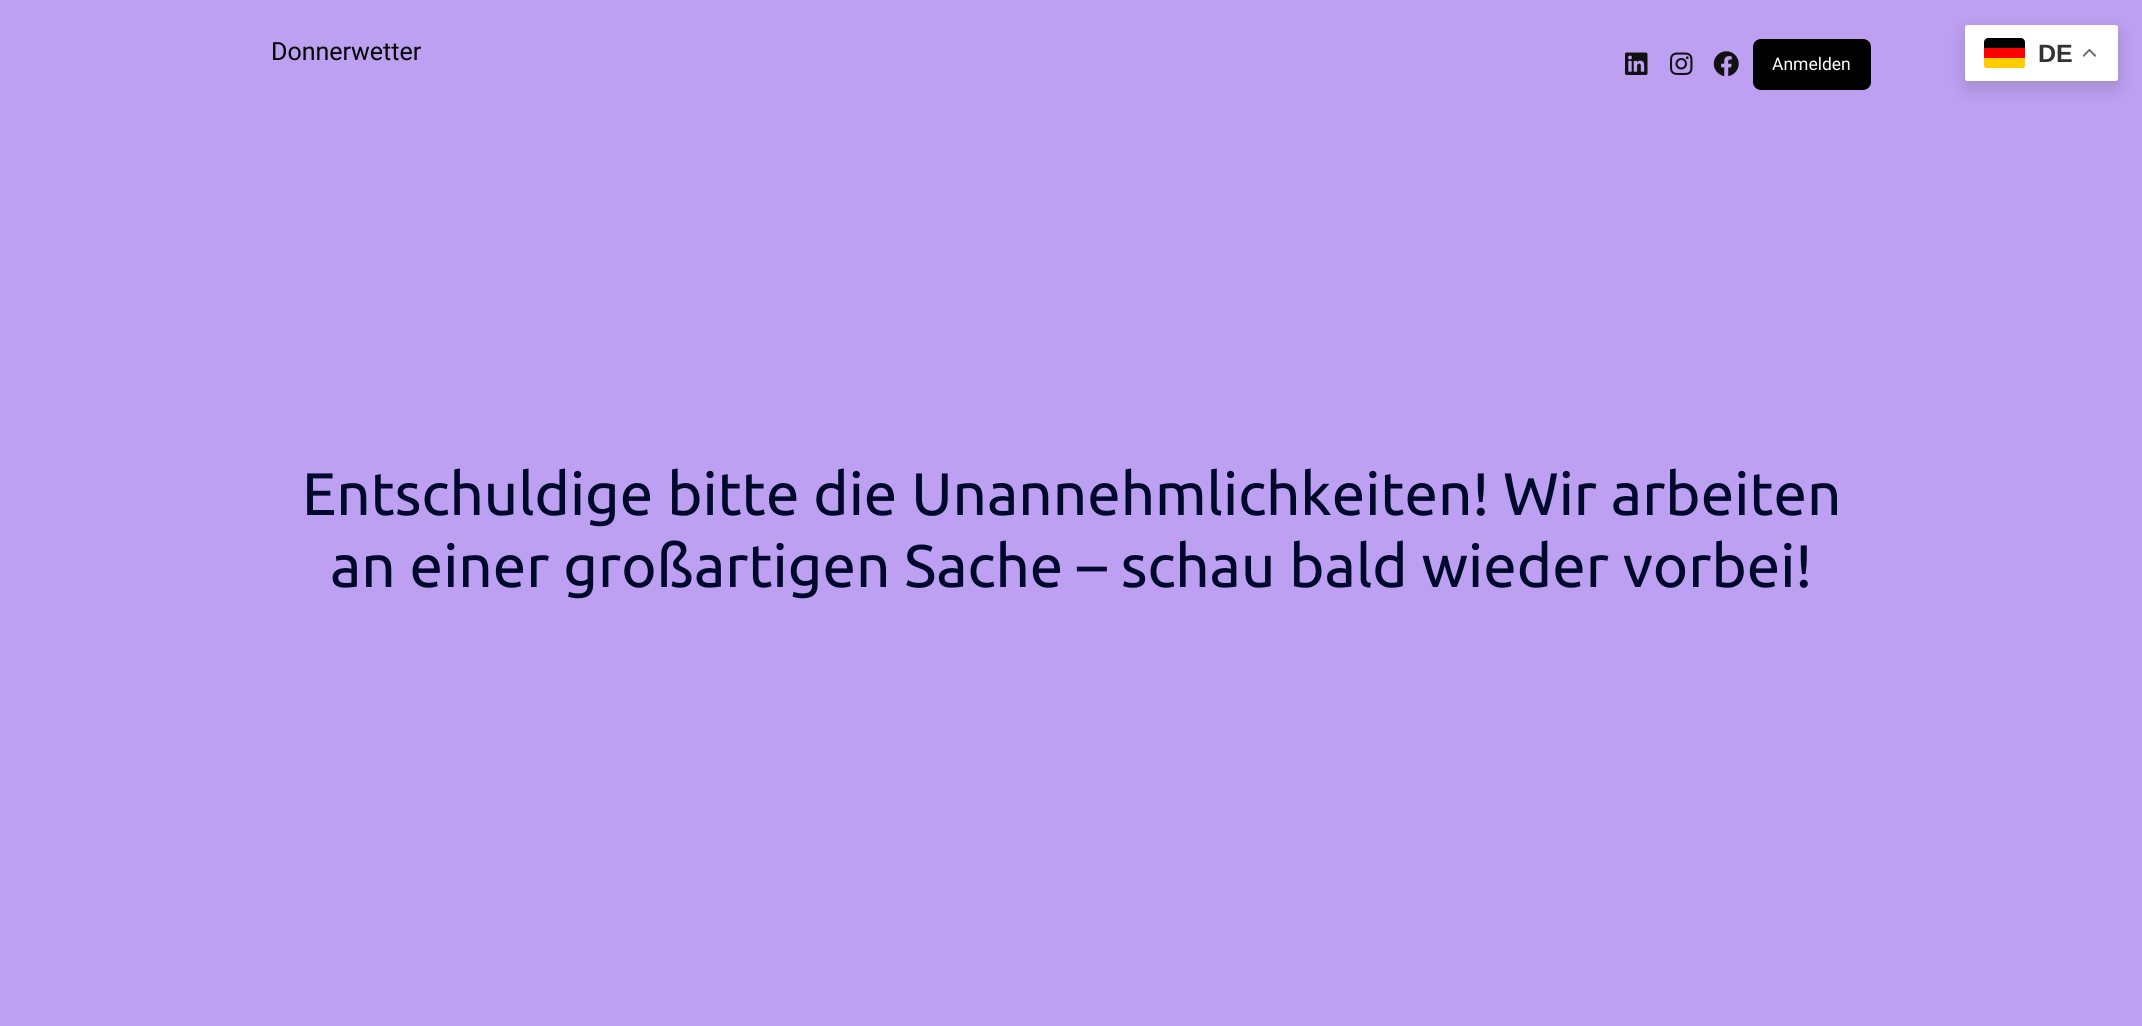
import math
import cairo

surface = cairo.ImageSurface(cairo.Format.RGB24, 2142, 1026)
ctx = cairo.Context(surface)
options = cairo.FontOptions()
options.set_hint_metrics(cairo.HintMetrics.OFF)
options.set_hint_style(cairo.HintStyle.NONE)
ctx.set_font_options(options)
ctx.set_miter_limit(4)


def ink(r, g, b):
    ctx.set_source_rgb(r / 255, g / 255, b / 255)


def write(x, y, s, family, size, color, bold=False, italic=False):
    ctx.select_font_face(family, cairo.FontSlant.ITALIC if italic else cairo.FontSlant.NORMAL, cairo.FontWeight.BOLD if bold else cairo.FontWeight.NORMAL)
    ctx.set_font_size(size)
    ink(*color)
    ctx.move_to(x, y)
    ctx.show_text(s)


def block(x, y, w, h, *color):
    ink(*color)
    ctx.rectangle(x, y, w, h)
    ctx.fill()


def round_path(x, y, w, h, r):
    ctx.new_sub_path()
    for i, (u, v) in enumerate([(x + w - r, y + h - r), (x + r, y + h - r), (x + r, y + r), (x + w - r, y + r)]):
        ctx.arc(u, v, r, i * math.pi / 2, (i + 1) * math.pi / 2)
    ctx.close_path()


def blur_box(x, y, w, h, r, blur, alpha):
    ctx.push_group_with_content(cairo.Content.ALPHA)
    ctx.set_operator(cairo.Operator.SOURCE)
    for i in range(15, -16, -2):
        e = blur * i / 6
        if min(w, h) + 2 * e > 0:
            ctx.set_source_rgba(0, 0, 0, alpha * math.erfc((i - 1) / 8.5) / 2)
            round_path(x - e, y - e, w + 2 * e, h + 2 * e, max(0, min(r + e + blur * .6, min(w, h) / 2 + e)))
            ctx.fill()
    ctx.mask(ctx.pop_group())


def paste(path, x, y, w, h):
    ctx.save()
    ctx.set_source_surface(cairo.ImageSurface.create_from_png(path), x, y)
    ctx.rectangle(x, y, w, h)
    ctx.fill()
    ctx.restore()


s1 = dict(family="Roboto", size=25, color=(0, 0, 0))
s2 = dict(family="Roboto", size=17.5, color=(255, 255, 255))
s3 = dict(family="Ubuntu", size=60, color=(0, 9, 44))
s4 = dict(family="Liberation Sans", size=25, color=(51, 51, 51), bold=True)

ink(190, 160, 242)
ctx.paint()
write(271, 60, "Donnerwetter", **s1)
paste("pic1.png", 1625, 52, 23, 23)
paste("pic2.png", 1670, 52, 23, 23)
paste("pic3.png", 1713, 51, 26, 26)
round_path(1753, 39, 118, 51, 8)
ctx.fill()
write(1772, 70, "Anmelden", **s2)
write(302, 515, "Entschuldige bitte die Unannehmlichkeiten! Wir arbeiten", **s3)
write(330, 587, "an einer großartigen Sache – schau bald wieder vorbei!", **s3)
ink(0, 0, 0)
blur_box(1965, 31, 153, 57, 2.5, 9.5, 0.15)
ink(255, 255, 255)
round_path(1965, 25, 153, 56, 2.5)
ctx.fill()
ctx.save()
round_path(1984, 38, 41, 31, 4)
ctx.clip()
block(1984, 58, 41, 10, 255, 204, 0)
ctx.restore()
ink(0, 0, 0)
ctx.new_path()
ctx.move_to(1988, 38)
ctx.line_to(2021, 38)
ctx.curve_to(2023, 38, 2025, 40, 2025, 42)
ctx.line_to(2025, 48)
ctx.line_to(1984, 48)
ctx.line_to(1984, 42)
ctx.curve_to(1984, 40, 1986, 38, 1988, 38)
ctx.close_path()
ctx.fill()
block(1984, 48, 41, 10, 255, 0, 0)
write(2038, 62, "DE", **s4)
paste("pic4.png", 2083, 48, 13, 9)
surface.write_to_png("screenshot.png")
